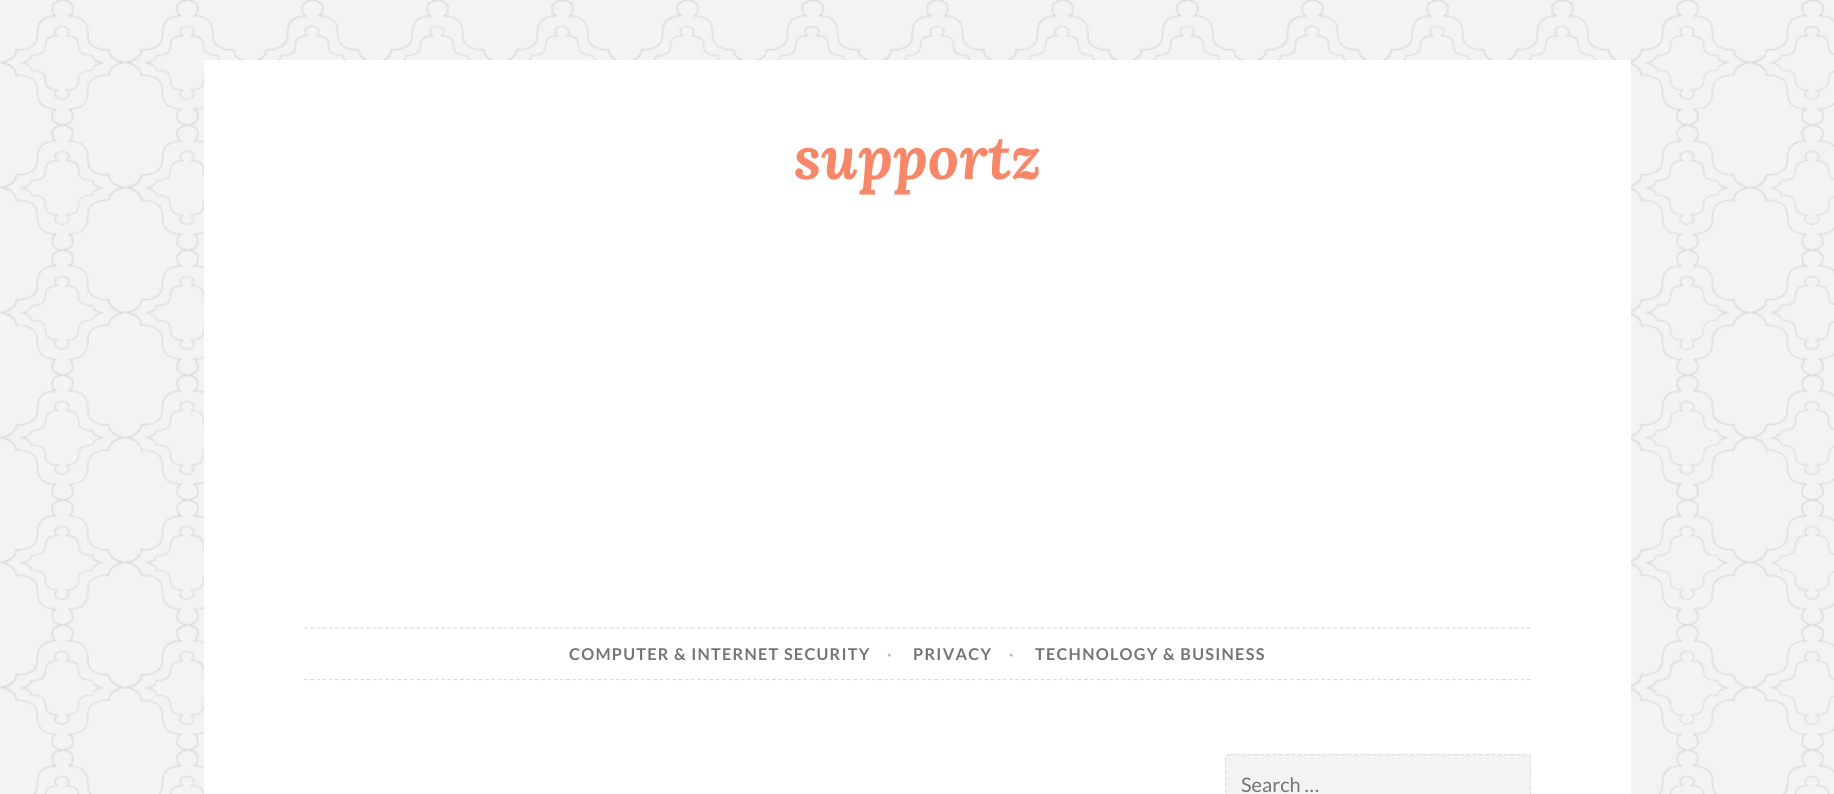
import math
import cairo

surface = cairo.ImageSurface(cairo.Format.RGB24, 1834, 794)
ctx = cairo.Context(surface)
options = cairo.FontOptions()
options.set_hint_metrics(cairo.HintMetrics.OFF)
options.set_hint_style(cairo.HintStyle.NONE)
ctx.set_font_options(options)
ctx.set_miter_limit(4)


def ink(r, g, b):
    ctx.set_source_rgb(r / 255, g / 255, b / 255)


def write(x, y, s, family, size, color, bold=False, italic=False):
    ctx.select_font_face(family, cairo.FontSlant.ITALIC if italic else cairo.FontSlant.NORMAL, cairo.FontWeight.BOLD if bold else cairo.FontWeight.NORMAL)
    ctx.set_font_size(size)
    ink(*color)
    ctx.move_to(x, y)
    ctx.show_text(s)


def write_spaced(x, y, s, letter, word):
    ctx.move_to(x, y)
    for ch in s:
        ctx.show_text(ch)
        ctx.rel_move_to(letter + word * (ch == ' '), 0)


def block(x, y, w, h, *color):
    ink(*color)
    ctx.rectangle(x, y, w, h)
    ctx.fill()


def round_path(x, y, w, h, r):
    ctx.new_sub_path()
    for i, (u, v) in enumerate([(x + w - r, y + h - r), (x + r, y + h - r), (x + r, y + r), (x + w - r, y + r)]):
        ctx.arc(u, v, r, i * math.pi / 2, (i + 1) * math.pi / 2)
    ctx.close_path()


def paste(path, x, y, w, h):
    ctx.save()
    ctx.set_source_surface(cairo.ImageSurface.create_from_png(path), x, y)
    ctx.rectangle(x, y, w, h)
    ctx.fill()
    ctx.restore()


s1 = dict(family="Lora", size=61, color=(247, 135, 105), bold=True, italic=True)
s2 = dict(family="Lato", size=20, color=(117, 117, 117))

ink(243, 243, 243)
ctx.paint()
paste("pic1.png", 0, 0, 1834, 794)
block(204, 60, 1427, 734, 255, 255, 255)
write(794, 179, "supportz", **s1)
ctx.new_path()
ctx.move_to(304, 628)
ctx.line_to(1531, 628)
ink(221, 221, 221)
ctx.set_line_width(1.2)
ctx.set_dash([3.75, 2.49])
ctx.stroke()
ctx.new_path()
ctx.move_to(304, 679.5)
ctx.line_to(1531, 679.5)
ctx.stroke()
ctx.select_font_face("Lato", cairo.FontSlant.NORMAL, cairo.FontWeight.BOLD)
ctx.set_font_size(16.25)
ink(117, 117, 117)
write_spaced(569, 660, "COMPUTER & INTERNET SECURITY", 1.25, 0)
ink(187, 187, 187)
write_spaced(887, 660, "·", 1.25, 0)
ink(117, 117, 117)
write_spaced(913, 660, "PRIVACY", 1.25, 0)
ink(187, 187, 187)
write_spaced(1009, 660, "·", 1.25, 0)
ink(117, 117, 117)
write_spaced(1035, 660, "TECHNOLOGY & BUSINESS", 1.25, 0)
ink(243, 243, 243)
round_path(1225, 754, 306, 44, 4)
ctx.fill()
ctx.save()
ctx.rectangle(1225, 754, 306, 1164)
ctx.clip()
ctx.new_path()
ctx.move_to(1229, 754.5)
ctx.line_to(1527.5, 754.5)
ctx.curve_to(1529, 754.5, 1530.5, 756, 1530.5, 757.5)
ctx.line_to(1530.5, 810)
ctx.curve_to(1530.5, 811.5, 1529, 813, 1527.5, 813)
ctx.line_to(1229, 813)
ctx.curve_to(1227, 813, 1225.5, 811.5, 1225.5, 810)
ctx.line_to(1225.5, 757.5)
ctx.curve_to(1225.5, 756, 1227, 754.5, 1229, 754.5)
ctx.close_path()
ink(221, 221, 221)
ctx.set_dash([3.75, 2.5])
ctx.stroke()
ctx.restore()
write(1241, 792, "Search …", **s2)
surface.write_to_png("screenshot.png")
